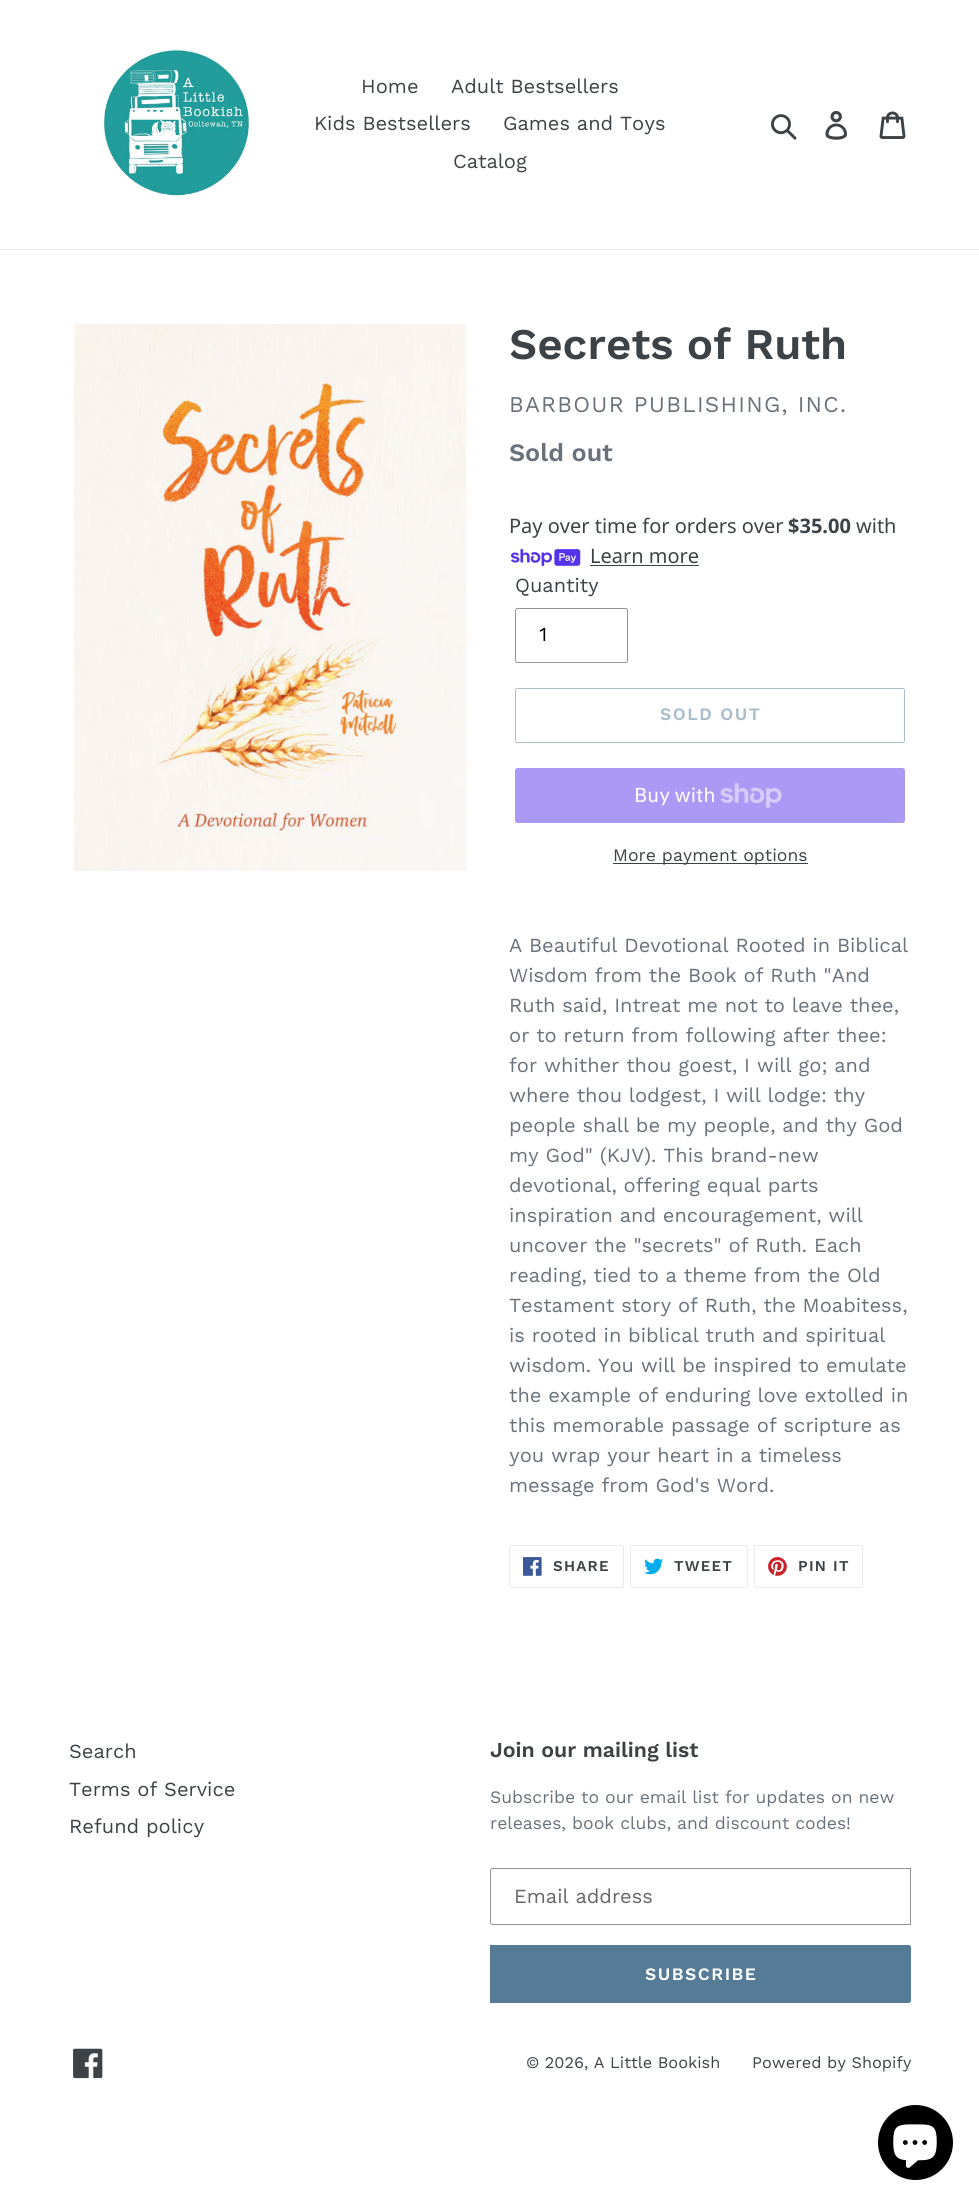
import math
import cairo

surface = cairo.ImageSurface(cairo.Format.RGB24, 979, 2206)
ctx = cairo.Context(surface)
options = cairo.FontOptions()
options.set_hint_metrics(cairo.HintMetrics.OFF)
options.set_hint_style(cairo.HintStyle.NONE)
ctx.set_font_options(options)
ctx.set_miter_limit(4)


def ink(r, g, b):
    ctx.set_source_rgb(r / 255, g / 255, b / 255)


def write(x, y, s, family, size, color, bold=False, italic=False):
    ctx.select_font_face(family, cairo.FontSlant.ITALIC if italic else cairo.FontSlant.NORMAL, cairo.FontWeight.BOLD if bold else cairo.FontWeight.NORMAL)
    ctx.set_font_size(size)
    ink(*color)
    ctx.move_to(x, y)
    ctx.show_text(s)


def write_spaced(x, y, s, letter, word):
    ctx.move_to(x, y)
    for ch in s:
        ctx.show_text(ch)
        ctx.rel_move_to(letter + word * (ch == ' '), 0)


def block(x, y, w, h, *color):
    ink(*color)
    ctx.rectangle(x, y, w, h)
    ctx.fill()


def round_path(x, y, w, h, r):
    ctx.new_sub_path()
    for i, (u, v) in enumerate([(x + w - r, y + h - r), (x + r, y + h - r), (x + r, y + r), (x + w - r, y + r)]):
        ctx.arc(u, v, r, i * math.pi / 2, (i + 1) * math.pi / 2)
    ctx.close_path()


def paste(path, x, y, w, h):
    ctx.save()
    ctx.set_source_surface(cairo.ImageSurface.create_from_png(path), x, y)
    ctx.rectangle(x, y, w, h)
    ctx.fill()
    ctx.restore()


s1 = dict(family="Work Sans", size=20, color=(61, 66, 70))
s2 = dict(family="Work Sans SemiBold", size=43.75, color=(61, 66, 70))
s3 = dict(family="Work Sans SemiBold", size=25, color=(105, 114, 123))
s4 = dict(family="Noto Sans", size=20, color=(61, 66, 70))
s5 = dict(family="Noto Sans", size=20, color=(61, 66, 70), bold=True)
s6 = dict(family="Work Sans", size=20, color=(0, 0, 0))
s7 = dict(family="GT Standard", size=20, color=(255, 255, 255))
s8 = dict(family="Work Sans", size=17.5, color=(61, 66, 70))
s9 = dict(family="Work Sans", size=20, color=(105, 114, 123))
s10 = dict(family="Work Sans SemiBold", size=21.25, color=(61, 66, 70))
s11 = dict(family="Work Sans", size=17.5, color=(105, 114, 123))
s12 = dict(family="Work Sans", size=20, color=(102, 102, 102))
s13 = dict(family="Work Sans", size=16.25, color=(61, 66, 70))

ink(255, 255, 255)
ctx.paint()
block(0, 249, 979, 1, 232, 233, 235)
paste("pic1.png", 103, 49, 147, 147)
write(361, 93, "Home", **s1)
write(451, 93, "Adult Bestsellers", **s1)
write(314, 130, "Kids Bestsellers", **s1)
write(503, 130, "Games and Toys", **s1)
write(453, 168, "Catalog", **s1)
paste("pic2.png", 771, 114, 26, 26)
paste("pic3.png", 825, 111, 23, 29)
paste("pic4.png", 879, 111, 27, 28)
paste("pic5.png", 74, 323, 393, 548)
write(509, 359, "Secrets of Ruth", **s2)
ctx.select_font_face("Work Sans")
ctx.set_font_size(22.5)
ink(105, 114, 123)
write_spaced(509, 412, "BARBOUR PUBLISHING, INC.", 1.25, 0)
write(509, 461, "Sold out", **s3)
write(509, 533, "Pay over time for orders over", **s4)
write(788, 533, "$35.00", **s5)
write(856, 533, "with", **s4)
paste("pic6.png", 511, 549, 70, 17)
write(590, 563, "Learn more", **s4)
block(590, 565, 109, 1, 61, 66, 70)
write(515, 592, "Quantity", **s1)
round_path(515.5, 608.5, 112, 54, 2)
ink(148, 148, 148)
ctx.set_line_width(1)
ctx.stroke()
write(539, 641, "1", **s6)
round_path(515.5, 688.5, 389, 54, 2)
ink(170, 189, 203)
ctx.stroke()
ctx.select_font_face("Work Sans SemiBold")
ctx.set_font_size(17.5)
write_spaced(660, 720, "SOLD OUT", 1.5, 0)
ink(170, 153, 245)
round_path(515, 768, 390, 55, 2.5)
ctx.fill()
write(634, 802, "Buy with", **s7)
paste("pic7.png", 720, 783, 62, 25)
block(613, 863, 195, 1, 61, 66, 70)
write(613, 861, "More payment options", **s8)
write(509, 952, "A Beautiful Devotional Rooted in Biblical", **s9)
write(509, 982, "Wisdom from the Book of Ruth \"And", **s9)
write(509, 1012, "Ruth said, Intreat me not to leave thee,", **s9)
write(509, 1042, "or to return from following after thee:", **s9)
write(509, 1072, "for whither thou goest, I will go; and", **s9)
write(509, 1102, "where thou lodgest, I will lodge: thy", **s9)
write(509, 1132, "people shall be my people, and thy God", **s9)
write(509, 1162, "my God\" (KJV). This brand-new", **s9)
write(509, 1192, "devotional, offering equal parts", **s9)
write(509, 1222, "inspiration and encouragement, will", **s9)
write(509, 1252, "uncover the \"secrets\" of Ruth. Each", **s9)
write(509, 1282, "reading, tied to a theme from the Old", **s9)
write(509, 1312, "Testament story of Ruth, the Moabitess,", **s9)
write(509, 1342, "is rooted in biblical truth and spiritual", **s9)
write(509, 1372, "wisdom. You will be inspired to emulate", **s9)
write(509, 1402, "the example of enduring love extolled in", **s9)
write(509, 1432, "this memorable passage of scripture as", **s9)
write(509, 1462, "you wrap your heart in a timeless", **s9)
write(509, 1492, "message from God's Word.", **s9)
round_path(509.5, 1545.5, 114, 42, 2)
ink(232, 233, 235)
ctx.stroke()
paste("pic8.png", 523, 1557, 19, 19)
ctx.select_font_face("Work Sans SemiBold")
ctx.set_font_size(15)
ink(61, 66, 70)
write_spaced(553, 1571, "SHARE", 1.25, 0)
round_path(630.5, 1545.5, 117, 42, 2)
ink(232, 233, 235)
ctx.stroke()
paste("pic9.png", 644, 1558, 20, 17)
ink(61, 66, 70)
write_spaced(674, 1571, "TWEET", 1.25, 0)
round_path(754.5, 1545.5, 108, 42, 2)
ink(232, 233, 235)
ctx.stroke()
paste("pic10.png", 768, 1557, 19, 19)
ink(61, 66, 70)
write_spaced(798, 1571, "PIN IT", 1.25, 0)
write(69, 1758, "Search", **s1)
write(69, 1796, "Terms of Service", **s1)
write(69, 1833, "Refund policy", **s1)
write(490, 1757, "Join our mailing list", **s10)
write(490, 1803, "Subscribe to our email list for updates on new", **s11)
write(490, 1829, "releases, book clubs, and discount codes!", **s11)
ctx.new_path()
ctx.move_to(492.5, 1868.5)
ctx.line_to(910.5, 1868.5)
ctx.line_to(910.5, 1924.5)
ctx.line_to(492.5, 1924.5)
ctx.curve_to(491.5, 1924.5, 490.5, 1923.5, 490.5, 1922.5)
ctx.line_to(490.5, 1870.5)
ctx.curve_to(490.5, 1869.5, 491.5, 1868.5, 492.5, 1868.5)
ctx.close_path()
ink(148, 148, 148)
ctx.stroke()
write(514, 1903, "Email address", **s12)
ink(85, 123, 151)
ctx.new_path()
ctx.move_to(490, 1945)
ctx.line_to(908.5, 1945)
ctx.curve_to(910, 1945, 911, 1946, 911, 1947.5)
ctx.line_to(911, 2000.5)
ctx.curve_to(911, 2002, 910, 2003, 908.5, 2003)
ctx.line_to(490, 2003)
ctx.close_path()
ctx.fill()
ctx.select_font_face("Work Sans SemiBold")
ctx.set_font_size(17.5)
ink(255, 255, 255)
write_spaced(645, 1980, "SUBSCRIBE", 1.5, 0)
paste("pic11.png", 73, 2048, 30, 31)
write(526, 2068, "© 2026, A Little Bookish", **s13)
write(752, 2068, "Powered by Shopify", **s13)
ink(0, 0, 0)
ctx.new_path()
ctx.arc(915.5, 2142.5, 37.5, 0, 2 * math.pi)
ctx.fill()
paste("pic12.png", 893, 2124, 44, 44)
surface.write_to_png("screenshot.png")
